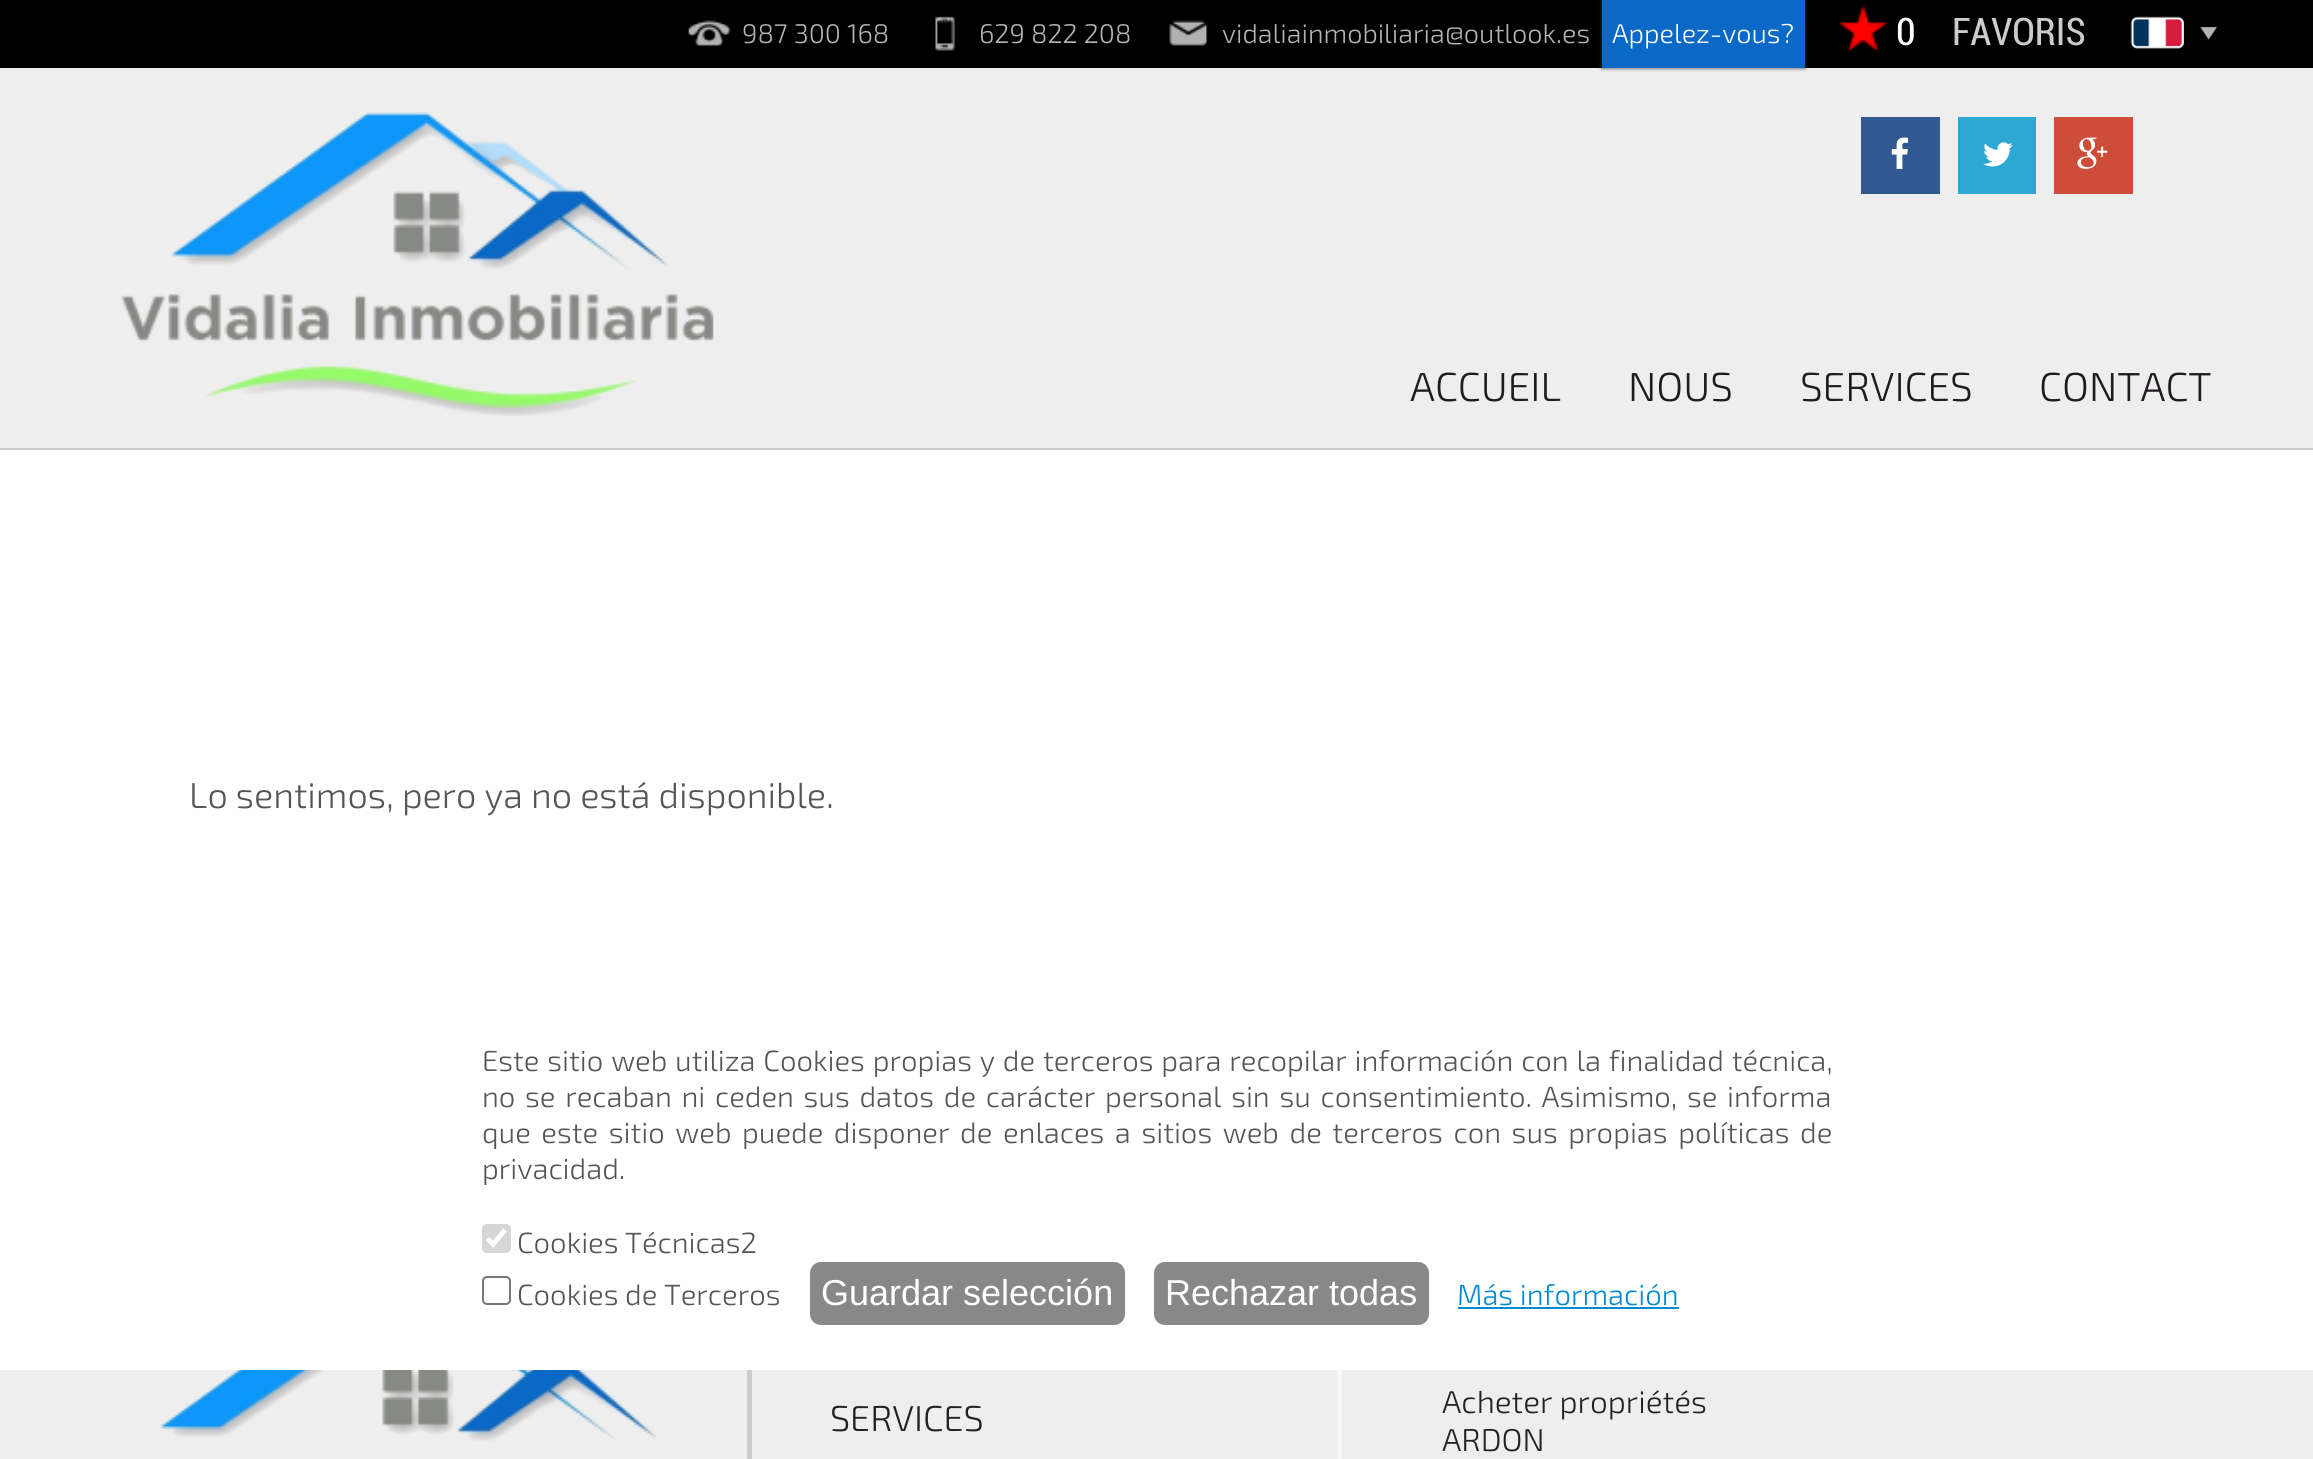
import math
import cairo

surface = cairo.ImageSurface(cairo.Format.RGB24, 2313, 1459)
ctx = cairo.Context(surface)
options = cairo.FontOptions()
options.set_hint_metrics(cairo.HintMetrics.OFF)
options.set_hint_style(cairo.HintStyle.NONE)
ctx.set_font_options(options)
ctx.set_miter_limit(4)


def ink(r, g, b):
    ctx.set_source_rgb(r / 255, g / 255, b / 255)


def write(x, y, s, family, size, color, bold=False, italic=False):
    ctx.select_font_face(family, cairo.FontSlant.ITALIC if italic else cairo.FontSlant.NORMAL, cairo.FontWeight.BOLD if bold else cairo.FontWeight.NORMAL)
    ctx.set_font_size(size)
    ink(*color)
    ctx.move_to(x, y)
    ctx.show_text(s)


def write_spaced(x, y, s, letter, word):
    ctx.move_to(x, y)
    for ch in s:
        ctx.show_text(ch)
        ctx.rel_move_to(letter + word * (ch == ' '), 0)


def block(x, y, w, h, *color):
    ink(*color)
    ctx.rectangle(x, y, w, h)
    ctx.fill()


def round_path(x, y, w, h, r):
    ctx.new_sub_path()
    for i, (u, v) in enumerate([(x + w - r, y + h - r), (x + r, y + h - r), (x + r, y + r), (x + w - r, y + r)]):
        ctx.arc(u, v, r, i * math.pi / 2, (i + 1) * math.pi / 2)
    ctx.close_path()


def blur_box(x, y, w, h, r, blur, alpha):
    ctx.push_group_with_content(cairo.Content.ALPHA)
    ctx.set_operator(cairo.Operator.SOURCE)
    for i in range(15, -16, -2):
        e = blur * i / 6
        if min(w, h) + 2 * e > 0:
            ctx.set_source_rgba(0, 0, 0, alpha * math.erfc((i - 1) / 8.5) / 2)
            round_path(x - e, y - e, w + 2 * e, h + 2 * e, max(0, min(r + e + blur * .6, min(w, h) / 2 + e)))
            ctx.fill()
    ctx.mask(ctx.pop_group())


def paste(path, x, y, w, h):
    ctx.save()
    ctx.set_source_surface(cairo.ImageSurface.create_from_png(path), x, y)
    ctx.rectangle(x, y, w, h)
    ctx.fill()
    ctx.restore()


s1 = dict(family="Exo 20 Light", size=27, color=(179, 179, 179))
s2 = dict(family="Exo 20 Light", size=27, color=(255, 255, 255))
s3 = dict(family="Roboto", size=38, color=(255, 255, 255))
s4 = dict(family="Roboto", size=38, color=(204, 204, 204))
s5 = dict(family="Exo 20 Light", size=40.5, color=(31, 27, 32))
s6 = dict(family="Exo 20 Light", size=36, color=(85, 85, 85))
s7 = dict(family="Exo 20 Light", size=29.25, color=(85, 85, 85))
s8 = dict(family="Liberation Sans", size=36, color=(255, 255, 255))
s9 = dict(family="Exo 20 Light", size=29.25, color=(1, 138, 214))
s10 = dict(family="Exo 20 Light", size=36, color=(34, 34, 34))
s11 = dict(family="Exo 20 Light", size=31.5, color=(34, 34, 34))

ink(255, 255, 255)
ctx.paint()
block(0, 0, 2313, 68, 0, 0, 0)
paste("pic1.png", 688, 20, 43, 27)
write(742, 43, "987 300 168", **s1)
paste("pic2.png", 935, 16, 20, 35)
write(979, 43, "629 822 208", **s1)
paste("pic3.png", 1169, 20, 39, 26)
write(1222, 43, "vidaliainmobiliaria@outlook.es", **s1)
block(0, 68, 2313, 380, 238, 238, 238)
ink(51, 51, 51)
blur_box(1602, 0, 203, 68, 0, 2, 1)
block(1602, 0, 203, 68, 10, 105, 199)
write(1612, 43, "Appelez-vous?", **s2)
paste("pic4.png", 1838, 4, 50, 48)
write(1896, 45, "0", **s3)
write(1952, 45, "FAVORIS", **s4)
paste("pic5.png", 2130, 16, 55, 33)
paste("pic6.png", 2199, 27, 19, 13)
paste("pic7.png", 121, 112, 593, 304)
block(1861, 117, 79, 77, 48, 88, 145)
paste("pic8.png", 1891, 137, 18, 32)
block(1958, 117, 78, 77, 44, 168, 210)
paste("pic9.png", 1983, 142, 30, 25)
block(2054, 117, 79, 77, 206, 77, 57)
paste("pic10.png", 2077, 137, 31, 32)
block(0, 448, 2313, 2, 204, 204, 204)
write(1410, 401, "ACCUEIL", **s5)
write(1628, 401, "NOUS", **s5)
write(1800, 401, "SERVICES", **s5)
write(2039, 401, "CONTACT", **s5)
write(189, 808, "Lo sentimos, pero ya no está disponible.", **s6)
ctx.set_font_size(29.25)
write_spaced(482, 1071, "Este sitio web utiliza Cookies propias y de terceros para recopilar información con la finalidad técnica,", 0, 1.25)
write_spaced(482, 1107, "no se recaban ni ceden sus datos de carácter personal sin su consentimiento. Asimismo, se informa", 0, 3.1)
write_spaced(482, 1143, "que este sitio web puede disponer de enlaces a sitios web de terceros con sus propias políticas de", 0, 4)
write(482, 1179, "privacidad.", **s7)
ink(214, 214, 214)
round_path(482, 1224, 29, 29, 5)
ctx.fill()
ctx.new_path()
ctx.move_to(487.5, 1238.5)
ctx.line_to(493, 1244.5)
ctx.line_to(505, 1230)
ink(255, 255, 255)
ctx.set_line_width(4.7)
ctx.stroke()
write(517, 1253, "Cookies Técnicas2", **s7)
round_path(483, 1277, 27, 27, 4)
ink(118, 118, 118)
ctx.set_line_width(2)
ctx.stroke()
write(517, 1305, "Cookies de Terceros", **s7)
ink(136, 136, 136)
round_path(810, 1262, 315, 63, 11)
ctx.fill()
write(821, 1305, "Guardar selección", **s8)
ink(136, 136, 136)
round_path(1154, 1262, 275, 63, 11)
ctx.fill()
write(1165, 1305, "Rechazar todas", **s8)
write(1457, 1305, "Más información", **s9)
block(1458, 1307, 221, 2, 1, 138, 214)
block(0, 1370, 2313, 89, 238, 238, 238)
block(747, 1370, 5, 89, 204, 204, 204)
paste("pic11.png", 159, 1370, 498, 72)
write(830, 1431, "SERVICES", **s10)
block(1337, 1370, 5, 89, 247, 247, 247)
write(1442, 1413, "Acheter propriétés", **s11)
write(1442, 1451, "ARDON", **s11)
surface.write_to_png("screenshot.png")
